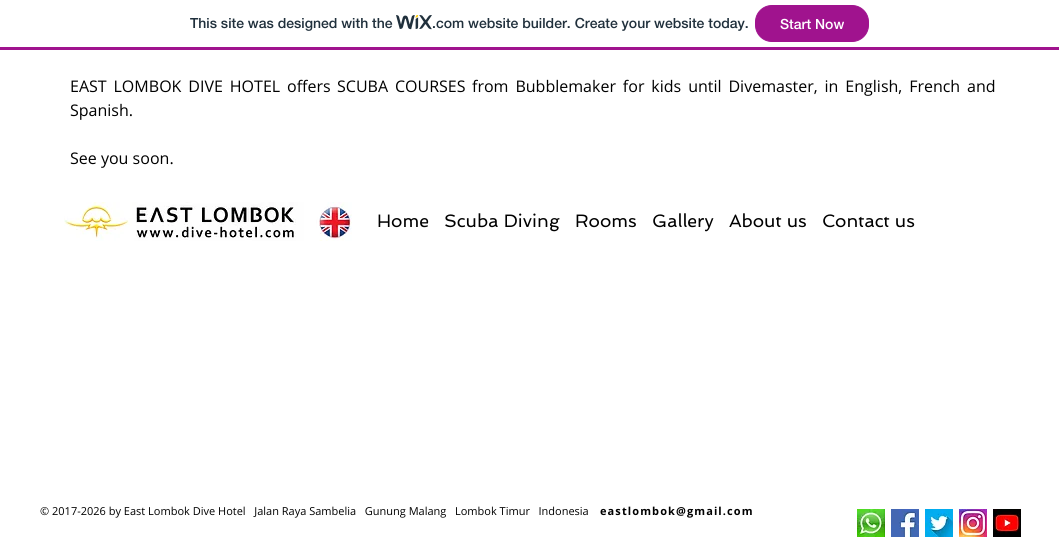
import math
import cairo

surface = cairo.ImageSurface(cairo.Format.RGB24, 1059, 539)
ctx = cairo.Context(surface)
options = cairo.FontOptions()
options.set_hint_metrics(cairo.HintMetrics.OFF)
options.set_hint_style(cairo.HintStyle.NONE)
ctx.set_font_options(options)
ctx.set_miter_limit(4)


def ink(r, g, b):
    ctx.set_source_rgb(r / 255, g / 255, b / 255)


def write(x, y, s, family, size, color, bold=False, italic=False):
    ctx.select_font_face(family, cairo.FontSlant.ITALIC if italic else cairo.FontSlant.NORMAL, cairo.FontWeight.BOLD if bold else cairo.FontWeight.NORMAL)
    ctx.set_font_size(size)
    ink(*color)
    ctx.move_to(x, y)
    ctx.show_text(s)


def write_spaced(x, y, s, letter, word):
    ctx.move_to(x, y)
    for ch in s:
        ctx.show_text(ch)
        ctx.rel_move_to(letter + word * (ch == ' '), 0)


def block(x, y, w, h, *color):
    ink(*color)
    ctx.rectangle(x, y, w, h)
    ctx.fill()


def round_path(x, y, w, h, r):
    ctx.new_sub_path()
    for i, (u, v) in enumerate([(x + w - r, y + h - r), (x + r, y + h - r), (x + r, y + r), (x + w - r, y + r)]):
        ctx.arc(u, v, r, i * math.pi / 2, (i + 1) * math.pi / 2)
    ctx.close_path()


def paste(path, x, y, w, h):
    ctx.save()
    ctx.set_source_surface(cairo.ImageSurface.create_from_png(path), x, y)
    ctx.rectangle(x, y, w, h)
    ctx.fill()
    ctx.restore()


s1 = dict(family="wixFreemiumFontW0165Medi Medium", size=14, color=(32, 48, 60))
s2 = dict(family="wixFreemiumFontW0165Medi Medium", size=14, color=(255, 255, 255))
s3 = dict(family="Open Sans", size=16, color=(0, 0, 0))
s4 = dict(family="Spinnaker", size=18, color=(0, 0, 0))
s5 = dict(family="Open Sans", size=11, color=(0, 0, 0))

ink(255, 255, 255)
ctx.paint()
block(0, 47, 1059, 3, 160, 19, 142)
write(190, 28, "This site was designed with the", **s1)
paste("pic1.png", 396, 15, 36, 15)
write(432, 28, ".com website builder. Create your website today.", **s1)
ink(160, 19, 142)
round_path(755.5, 5.5, 113, 36, 16.5)
ctx.fill_preserve()
ctx.set_line_width(1)
ctx.stroke()
write(780, 29, "Start Now", **s2)
ctx.select_font_face("Open Sans")
ctx.set_font_size(16)
ink(0, 0, 0)
write_spaced(70, 92, "EAST LOMBOK DIVE HOTEL offers", 0, 2.75)
write_spaced(337, 92, "SCUBA COURSES", 0, 2.75)
write_spaced(472, 92, "from Bubblemaker for kids until Divemaster, in English, French and", 0, 2.75)
write(70, 116, "Spanish.", **s3)
write(70, 164, "See you soon.", **s3)
paste("pic2.png", 64, 202, 288, 39)
write(377, 227, "Home", **s4)
write(444, 227, "Scuba Diving", **s4)
write(575, 227, "Rooms", **s4)
write(652, 227, "Gallery", **s4)
write(729, 227, "About us", **s4)
write(822, 227, "Contact us", **s4)
write(40, 515, "© 2017-2026 by East Lombok Dive Hotel   Jalan Raya Sambelia   Gunung Malang   Lombok Timur   Indonesia", **s5)
ctx.select_font_face("Open Sans", cairo.FontSlant.NORMAL, cairo.FontWeight.BOLD)
write_spaced(600, 515, "eastlombok@gmail.com", 1.1, 0)
paste("pic3.png", 857, 509, 28, 28)
paste("pic4.png", 891, 509, 28, 28)
paste("pic5.png", 925, 509, 28, 28)
paste("pic6.png", 959, 509, 28, 28)
paste("pic7.png", 993, 509, 28, 28)
surface.write_to_png("screenshot.png")
